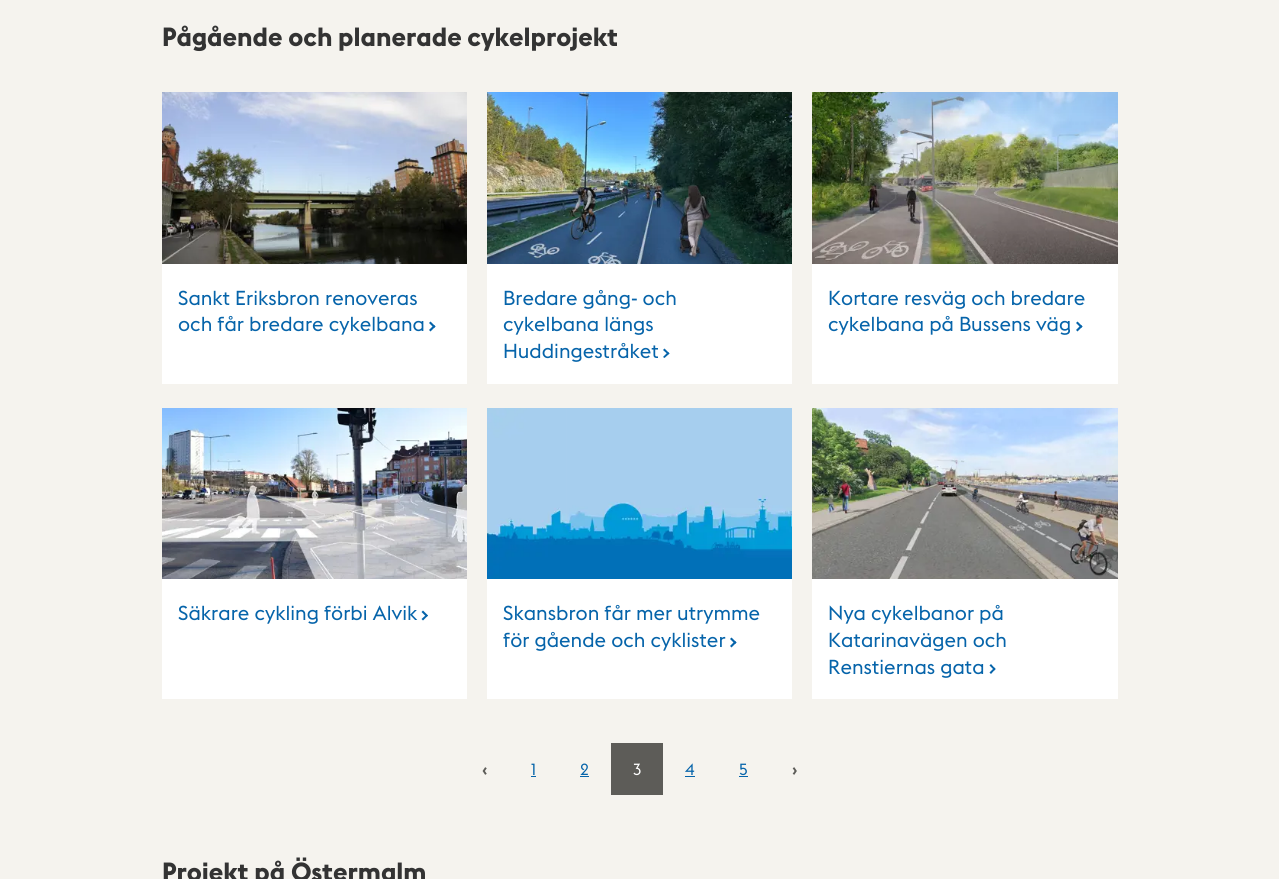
import math
import cairo

surface = cairo.ImageSurface(cairo.Format.RGB24, 1279, 879)
ctx = cairo.Context(surface)
options = cairo.FontOptions()
options.set_hint_metrics(cairo.HintMetrics.OFF)
options.set_hint_style(cairo.HintStyle.NONE)
ctx.set_font_options(options)
ctx.set_miter_limit(4)


def ink(r, g, b):
    ctx.set_source_rgb(r / 255, g / 255, b / 255)


def write(x, y, s, family, size, color, bold=False, italic=False):
    ctx.select_font_face(family, cairo.FontSlant.ITALIC if italic else cairo.FontSlant.NORMAL, cairo.FontWeight.BOLD if bold else cairo.FontWeight.NORMAL)
    ctx.set_font_size(size)
    ink(*color)
    ctx.move_to(x, y)
    ctx.show_text(s)


def block(x, y, w, h, *color):
    ink(*color)
    ctx.rectangle(x, y, w, h)
    ctx.fill()


def paste(path, x, y, w, h):
    ctx.save()
    ctx.set_source_surface(cairo.ImageSurface.create_from_png(path), x, y)
    ctx.rectangle(x, y, w, h)
    ctx.fill()
    ctx.restore()


s1 = dict(family="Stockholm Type", size=26, color=(51, 51, 51), bold=True)
s2 = dict(family="Stockholm Type", size=20, color=(6, 100, 170))
s3 = dict(family="Stockholm Type", size=16, color=(93, 92, 88), bold=True)
s4 = dict(family="Stockholm Type", size=16, color=(6, 100, 170))
s5 = dict(family="Stockholm Type", size=16, color=(255, 255, 255))

ink(245, 243, 238)
ctx.paint()
write(162, 46, "Pågående och planerade cykelprojekt", **s1)
block(162, 264, 305, 120, 255, 255, 255)
paste("pic1.png", 162, 92, 305, 172)
write(178, 305, "Sankt Eriksbron renoveras", **s2)
write(178, 331, "och får bredare cykelbana", **s2)
ctx.new_path()
ctx.move_to(429, 323)
ctx.line_to(430.5, 321.5)
ctx.line_to(435.5, 326.5)
ctx.line_to(434, 328)
ctx.close_path()
ctx.fill()
ctx.new_path()
ctx.move_to(429, 330)
ctx.line_to(434, 325)
ctx.line_to(435.5, 326.5)
ctx.line_to(430.5, 331.5)
ctx.close_path()
ctx.fill()
block(487, 264, 305, 120, 255, 255, 255)
paste("pic2.png", 487, 92, 305, 172)
write(503, 305, "Bredare gång- och", **s2)
write(503, 331, "cykelbana längs", **s2)
write(503, 358, "Huddingestråket", **s2)
ctx.new_path()
ctx.move_to(663, 350)
ctx.line_to(664.5, 348.5)
ctx.line_to(669.5, 353.5)
ctx.line_to(668, 354.5)
ctx.close_path()
ctx.fill()
ctx.new_path()
ctx.move_to(663, 357)
ctx.line_to(668, 352)
ctx.line_to(669.5, 353.5)
ctx.line_to(664.5, 358)
ctx.close_path()
ctx.fill()
block(812, 264, 306, 120, 255, 255, 255)
paste("pic3.png", 812, 92, 306, 172)
write(828, 305, "Kortare resväg och bredare", **s2)
write(828, 331, "cykelbana på Bussens väg", **s2)
ctx.new_path()
ctx.move_to(1076, 323)
ctx.line_to(1077.5, 321.5)
ctx.line_to(1082.5, 326.5)
ctx.line_to(1081, 328)
ctx.close_path()
ctx.fill()
ctx.new_path()
ctx.move_to(1076, 330)
ctx.line_to(1081, 325)
ctx.line_to(1082.5, 326.5)
ctx.line_to(1077.5, 331.5)
ctx.close_path()
ctx.fill()
block(162, 579, 305, 120, 255, 255, 255)
paste("pic4.png", 162, 408, 305, 171)
write(178, 620, "Säkrare cykling förbi Alvik", **s2)
ctx.new_path()
ctx.move_to(421.5, 612)
ctx.line_to(423, 610.5)
ctx.line_to(428, 615.5)
ctx.line_to(426.5, 617)
ctx.close_path()
ctx.fill()
ctx.new_path()
ctx.move_to(421.5, 619)
ctx.line_to(426.5, 614.5)
ctx.line_to(428, 615.5)
ctx.line_to(423, 620.5)
ctx.close_path()
ctx.fill()
block(487, 408, 305, 291, 255, 255, 255)
paste("pic5.png", 487, 408, 305, 171)
write(503, 620, "Skansbron får mer utrymme", **s2)
write(503, 647, "för gående och cyklister", **s2)
ctx.new_path()
ctx.move_to(730, 639)
ctx.line_to(731.5, 637.5)
ctx.line_to(736.5, 642.5)
ctx.line_to(735, 644)
ctx.close_path()
ctx.fill()
ctx.new_path()
ctx.move_to(730, 646)
ctx.line_to(735, 641)
ctx.line_to(736.5, 642.5)
ctx.line_to(731.5, 647.5)
ctx.close_path()
ctx.fill()
block(812, 579, 306, 120, 255, 255, 255)
paste("pic6.png", 812, 408, 306, 171)
write(828, 620, "Nya cykelbanor på", **s2)
write(828, 647, "Katarinavägen och", **s2)
write(828, 674, "Renstiernas gata", **s2)
ctx.new_path()
ctx.move_to(989.5, 665.5)
ctx.line_to(991, 664)
ctx.line_to(995.5, 669)
ctx.line_to(994.5, 670.5)
ctx.close_path()
ctx.fill()
ctx.new_path()
ctx.move_to(989.5, 672.5)
ctx.line_to(994.5, 667.5)
ctx.line_to(995.5, 669)
ctx.line_to(991, 674)
ctx.close_path()
ctx.fill()
write(482, 775, "‹", **s3)
write(531, 775, "1", **s4)
block(531, 776, 5, 1, 6, 100, 170)
write(580, 775, "2", **s4)
block(580, 776, 9, 1, 6, 100, 170)
block(611, 743, 52, 52, 93, 92, 88)
write(633, 775, "3", **s5)
write(685, 775, "4", **s4)
block(685, 776, 10, 1, 6, 100, 170)
write(739, 775, "5", **s4)
block(739, 776, 9, 1, 6, 100, 170)
write(792, 775, "›", **s3)
write(162, 881, "Projekt på Östermalm", **s1)
surface.write_to_png("screenshot.png")
